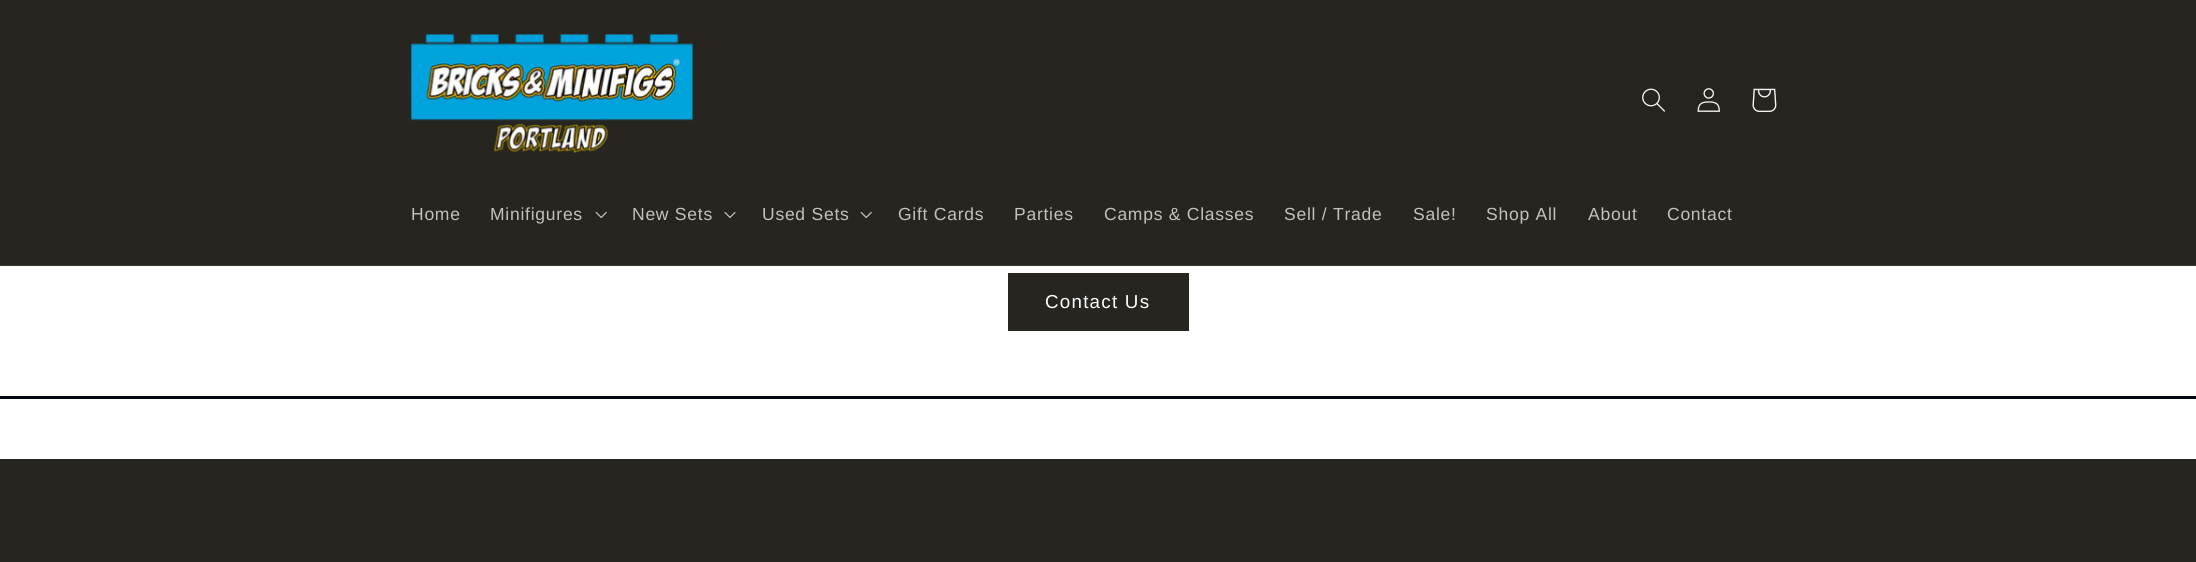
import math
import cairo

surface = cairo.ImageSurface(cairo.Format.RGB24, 2196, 562)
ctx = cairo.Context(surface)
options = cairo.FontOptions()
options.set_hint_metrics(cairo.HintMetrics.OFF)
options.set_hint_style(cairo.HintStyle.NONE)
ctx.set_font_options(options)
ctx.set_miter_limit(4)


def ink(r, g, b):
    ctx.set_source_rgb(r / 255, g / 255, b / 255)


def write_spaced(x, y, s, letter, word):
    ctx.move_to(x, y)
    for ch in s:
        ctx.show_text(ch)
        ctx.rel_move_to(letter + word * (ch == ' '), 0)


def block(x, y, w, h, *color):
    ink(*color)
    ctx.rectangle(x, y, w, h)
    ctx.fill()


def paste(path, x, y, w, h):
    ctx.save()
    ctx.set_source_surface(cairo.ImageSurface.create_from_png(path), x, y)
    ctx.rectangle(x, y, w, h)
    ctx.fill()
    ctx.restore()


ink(255, 255, 255)
ctx.paint()
block(0, 0, 2196, 265, 39, 37, 31)
block(0, 265, 2196, 1, 55, 54, 48)
paste("pic1.png", 411, 34, 282, 119)
paste("pic2.png", 1642, 88, 23, 24)
paste("pic3.png", 1697, 88, 23, 24)
paste("pic4.png", 1752, 88, 25, 24)
ctx.select_font_face("Arimo")
ctx.set_font_size(17.5)
ink(194, 193, 192)
write_spaced(411, 220, "Home", 0.75, 0)
write_spaced(490, 220, "Minifigures", 0.75, 0)
paste("pic5.png", 595, 211, 12, 8)
write_spaced(632, 220, "New Sets", 0.75, 0)
paste("pic6.png", 724, 212, 12, 6)
write_spaced(762, 220, "Used Sets", 0.75, 0)
paste("pic5.png", 860, 211, 12, 8)
write_spaced(898, 220, "Gift Cards", 0.75, 0)
write_spaced(1014, 220, "Parties", 0.75, 0)
write_spaced(1104, 220, "Camps & Classes", 0.75, 0)
write_spaced(1284, 220, "Sell / Trade", 0.75, 0)
write_spaced(1413, 220, "Sale!", 0.75, 0)
write_spaced(1486, 220, "Shop All", 0.75, 0)
write_spaced(1588, 220, "About", 0.75, 0)
write_spaced(1667, 220, "Contact", 0.75, 0)
block(0, 396, 2196, 3, 2, 9, 18)
block(1008, 273, 181, 58, 39, 37, 31)
ctx.set_font_size(18.75)
ink(255, 255, 255)
write_spaced(1045, 308, "Contact Us", 1.25, 0)
block(0, 459, 2196, 103, 39, 37, 31)
surface.write_to_png("screenshot.png")
